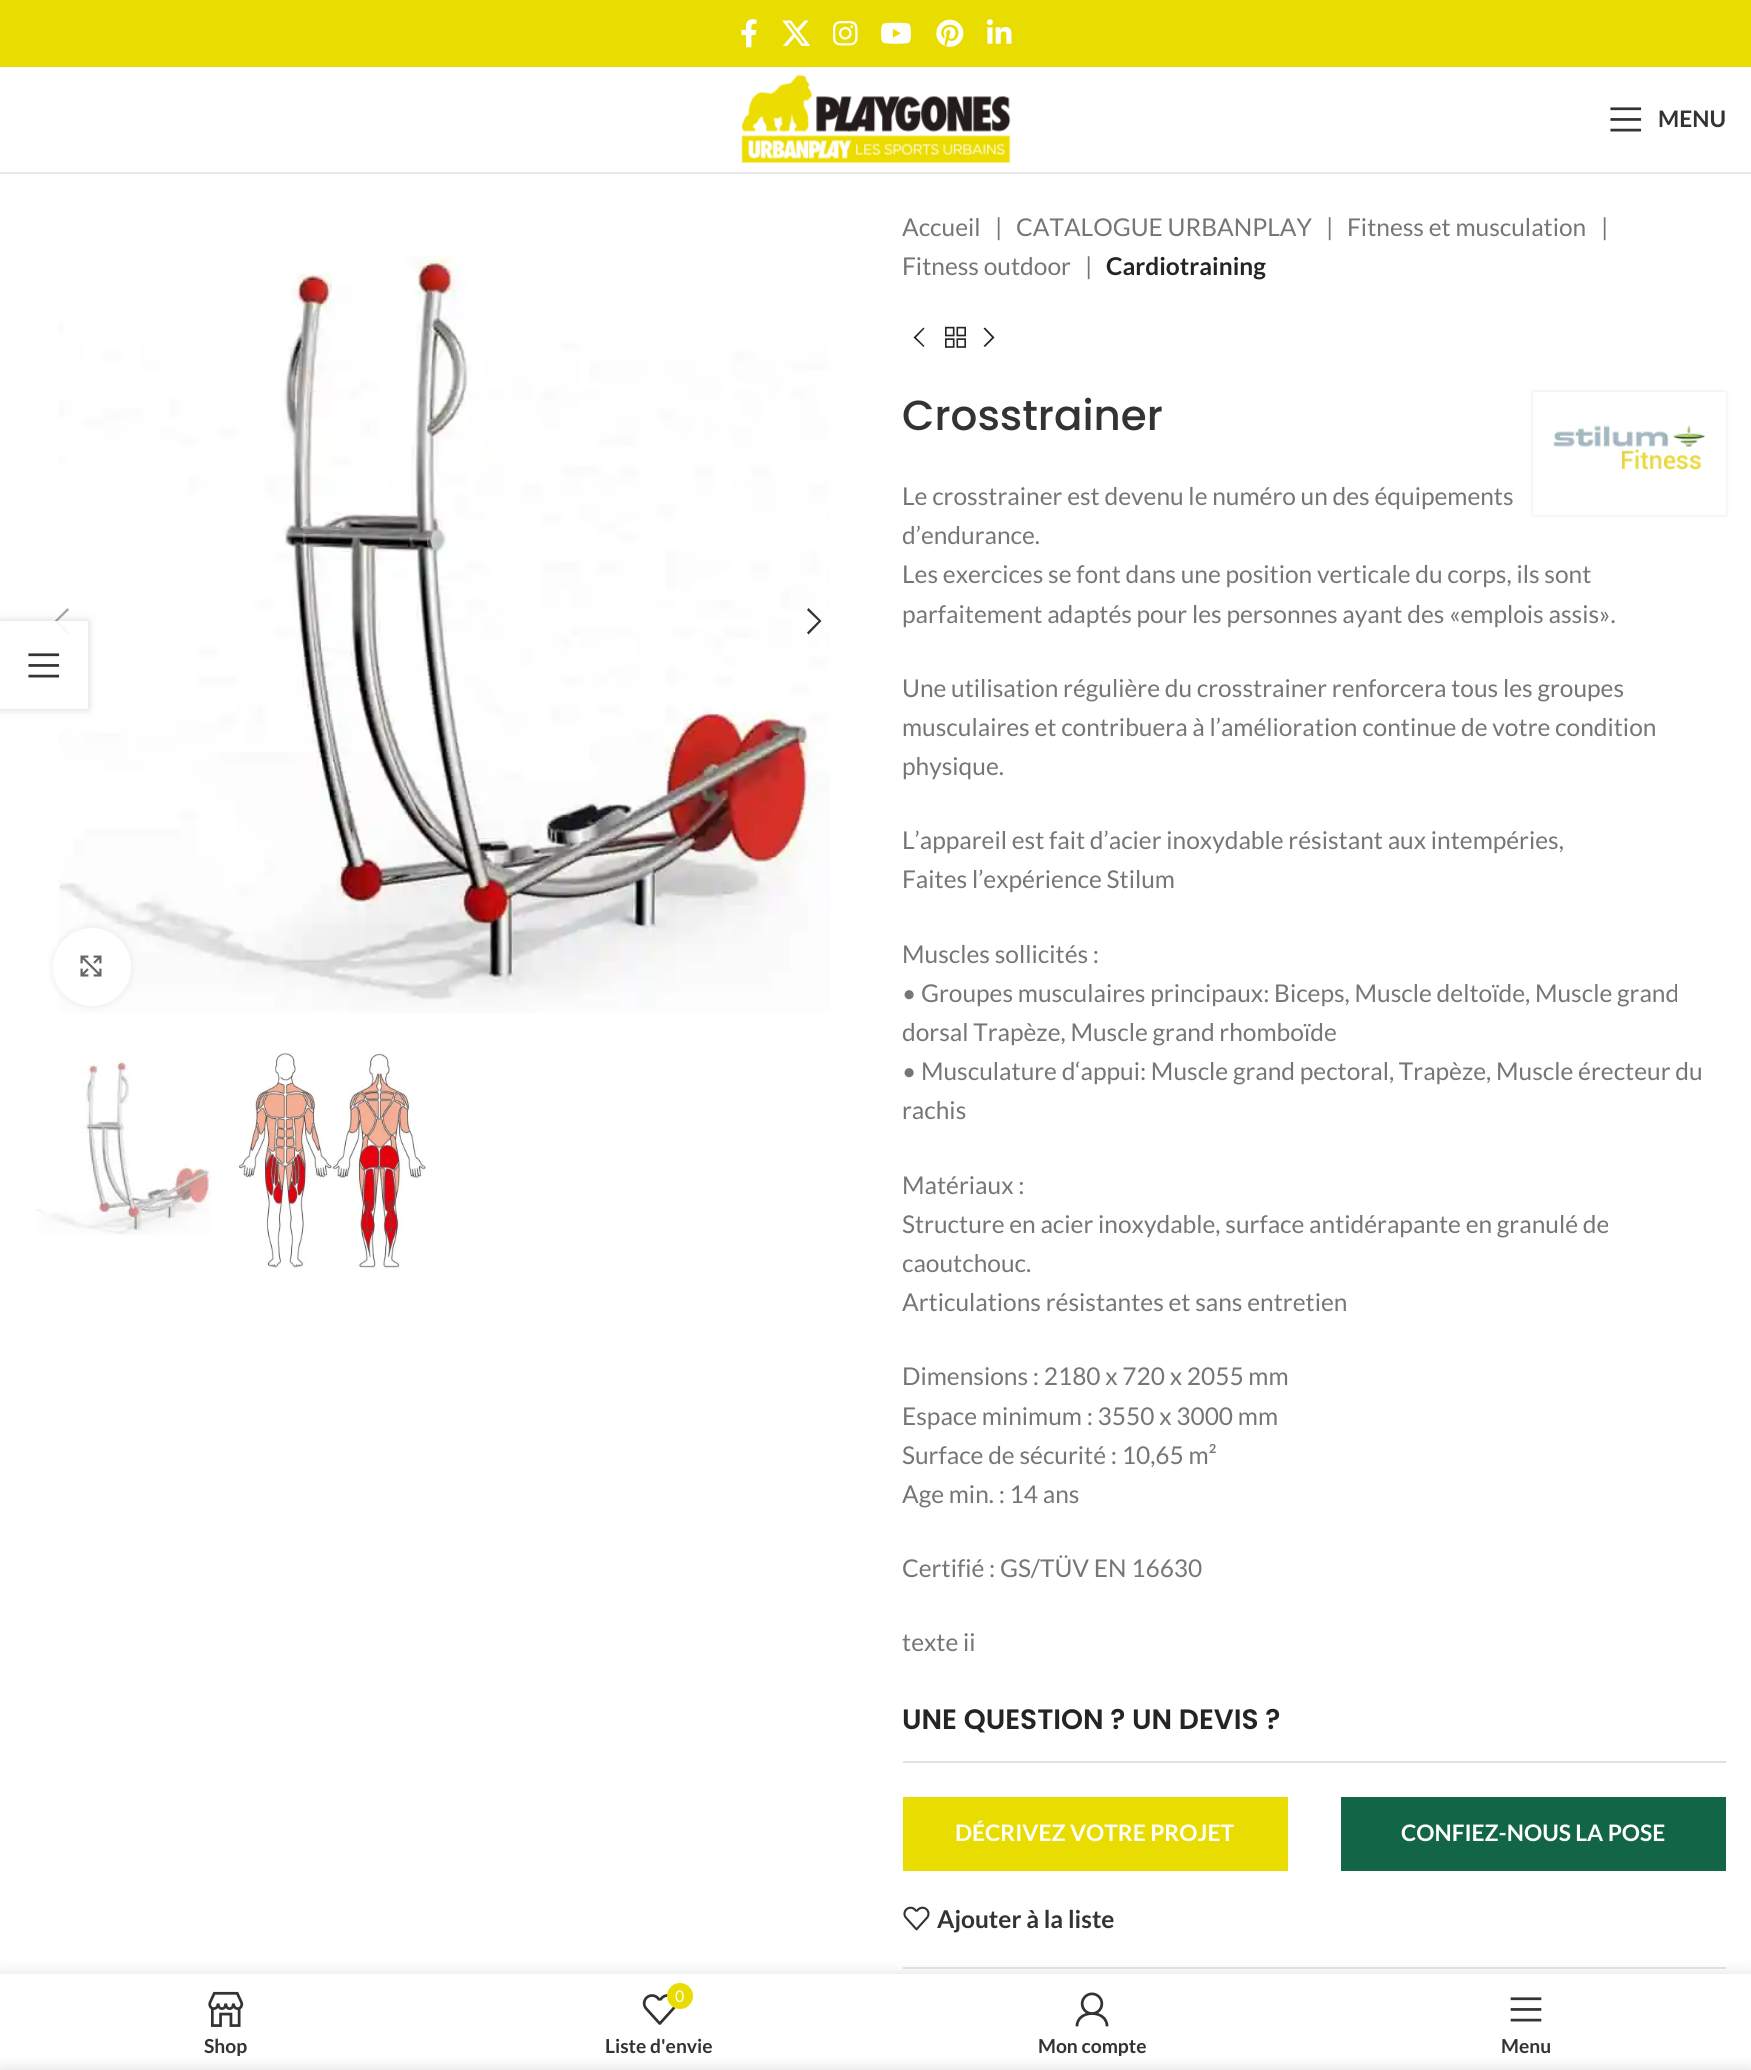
import math
import cairo

surface = cairo.ImageSurface(cairo.Format.RGB24, 1751, 2070)
ctx = cairo.Context(surface)
options = cairo.FontOptions()
options.set_hint_metrics(cairo.HintMetrics.OFF)
options.set_hint_style(cairo.HintStyle.NONE)
ctx.set_font_options(options)
ctx.set_miter_limit(4)


def ink(r, g, b):
    ctx.set_source_rgb(r / 255, g / 255, b / 255)


def write(x, y, s, family, size, color, bold=False, italic=False):
    ctx.select_font_face(family, cairo.FontSlant.ITALIC if italic else cairo.FontSlant.NORMAL, cairo.FontWeight.BOLD if bold else cairo.FontWeight.NORMAL)
    ctx.set_font_size(size)
    ink(*color)
    ctx.move_to(x, y)
    ctx.show_text(s)


def block(x, y, w, h, *color):
    ink(*color)
    ctx.rectangle(x, y, w, h)
    ctx.fill()


def round_path(x, y, w, h, r):
    ctx.new_sub_path()
    for i, (u, v) in enumerate([(x + w - r, y + h - r), (x + r, y + h - r), (x + r, y + r), (x + w - r, y + r)]):
        ctx.arc(u, v, r, i * math.pi / 2, (i + 1) * math.pi / 2)
    ctx.close_path()


def blur_box(x, y, w, h, r, blur, alpha):
    ctx.push_group_with_content(cairo.Content.ALPHA)
    ctx.set_operator(cairo.Operator.SOURCE)
    for i in range(15, -16, -2):
        e = blur * i / 6
        if min(w, h) + 2 * e > 0:
            ctx.set_source_rgba(0, 0, 0, alpha * math.erfc((i - 1) / 8.5) / 2)
            round_path(x - e, y - e, w + 2 * e, h + 2 * e, max(0, min(r + e + blur * .6, min(w, h) / 2 + e)))
            ctx.fill()
    ctx.mask(ctx.pop_group())


def paste(path, x, y, w, h):
    ctx.save()
    ctx.set_source_surface(cairo.ImageSurface.create_from_png(path), x, y)
    ctx.rectangle(x, y, w, h)
    ctx.fill()
    ctx.restore()


s1 = dict(family="Lato", size=22.75, color=(51, 51, 51), bold=True)
s2 = dict(family="Lato", size=24.5, color=(118, 118, 118))
s3 = dict(family="Lato", size=24.5, color=(36, 36, 36), bold=True)
s4 = dict(family="Poppins Medium", size=42, color=(51, 51, 51))
s5 = dict(family="Poppins SemiBold", size=28, color=(36, 36, 36))
s6 = dict(family="Lato", size=22.75, color=(255, 255, 255), bold=True)
s7 = dict(family="Lato", size=24.5, color=(51, 51, 51), bold=True)
s8 = dict(family="Lato", size=19.25, color=(51, 51, 51), bold=True)
s9 = dict(family="Lato", size=16, color=(255, 255, 255))

ink(255, 255, 255)
ctx.paint()
paste("pic9.png", 59, 255, 771, 758)
ink(165, 165, 165)
ctx.new_path()
ctx.move_to(69, 610)
ctx.line_to(67.5, 608)
ctx.line_to(54.5, 621)
ctx.line_to(67.5, 634.5)
ctx.line_to(69, 632.5)
ctx.line_to(57.5, 621)
ctx.close_path()
ctx.fill()
ctx.save()
ctx.set_fill_rule(cairo.FillRule.EVEN_ODD)
ctx.new_path()
ctx.move_to(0, 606)
ctx.line_to(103, 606)
ctx.line_to(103, 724)
ctx.line_to(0, 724)
ctx.close_path()
ctx.move_to(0, 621)
ctx.line_to(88, 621)
ctx.line_to(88, 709)
ctx.line_to(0, 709)
ctx.close_path()
ctx.clip()
ink(0, 0, 0)
blur_box(0, 621, 88, 88, 0, 4.5, 0.17)
ctx.restore()
ctx.set_source_rgba(1, 1, 1, 0.9)
ctx.rectangle(0, 621, 88, 88)
ctx.fill()
paste("pic1.png", 28, 653, 32, 25)
block(0, 0, 1751, 67, 233, 220, 0)
paste("pic2.png", 741, 19, 16, 29)
paste("pic3.png", 782, 20, 29, 26)
paste("pic4.png", 833, 21, 25, 25)
paste("pic5.png", 881, 22, 30, 22)
paste("pic6.png", 936, 19, 28, 28)
paste("pic7.png", 987, 19, 25, 25)
block(0, 172, 1751, 2, 232, 232, 232)
paste("pic8.png", 741, 75, 270, 88)
paste("pic1.png", 1610, 107, 32, 25)
write(1658, 127, "MENU", **s1)
ctx.new_path()
ctx.move_to(807, 610)
ctx.line_to(818.5, 621)
ctx.line_to(807, 632.5)
ctx.line_to(808.5, 634.5)
ctx.line_to(821.5, 621)
ctx.line_to(808.5, 608)
ctx.close_path()
ctx.fill()
ink(0, 0, 0)
blur_box(53, 928, 78, 78, 39, 4.5, 0.08)
ink(255, 255, 255)
ctx.arc(92, 967, 39, 0, 2 * math.pi)
ctx.fill()
paste("pic10.png", 80, 955, 22, 22)
paste("pic11.png", 36, 1060, 175, 175)
paste("pic12.png", 239, 1053, 187, 216)
write(902, 236, "Accueil", **s2)
write(995, 236, "|", **s2)
write(1016, 236, "CATALOGUE URBANPLAY", **s2)
write(1326, 236, "|", **s2)
write(1347, 236, "Fitness et musculation", **s2)
write(1601, 236, "|", **s2)
write(902, 275, "Fitness outdoor", **s2)
write(1085, 275, "|", **s2)
write(1106, 275, "Cardiotraining", **s3)
ctx.new_path()
ctx.move_to(924.5, 328.5)
ctx.line_to(923.5, 327.5)
ctx.line_to(913.5, 337.5)
ctx.line_to(923.5, 347)
ctx.line_to(924.5, 346)
ctx.line_to(916, 337.5)
ctx.close_path()
ctx.fill()
paste("pic13.png", 945, 326, 21, 22)
ctx.new_path()
ctx.move_to(983.5, 328.5)
ctx.line_to(992, 337.5)
ctx.line_to(983.5, 346)
ctx.line_to(985, 347)
ctx.line_to(994.5, 337.5)
ctx.line_to(985, 327.5)
ctx.close_path()
ctx.fill()
write(902, 430, "Crosstrainer", **s4)
ink(0, 0, 0)
blur_box(1533, 392, 193, 123, 0, 2, 0.12)
block(1533, 392, 193, 123, 255, 255, 255)
paste("pic14.png", 1553, 425, 152, 45)
write(902, 505, "Le crosstrainer est devenu le numéro un des équipements", **s2)
write(902, 544, "d’endurance.", **s2)
write(902, 583, "Les exercices se font dans une position verticale du corps, ils sont", **s2)
write(902, 623, "parfaitement adaptés pour les personnes ayant des «emplois assis».", **s2)
write(902, 697, "Une utilisation régulière du crosstrainer renforcera tous les groupes", **s2)
write(902, 736, "musculaires et contribuera à l’amélioration continue de votre condition", **s2)
write(902, 775, "physique.", **s2)
write(902, 849, "L’appareil est fait d’acier inoxydable résistant aux intempéries,", **s2)
write(902, 888, "Faites l’expérience Stilum", **s2)
write(902, 963, "Muscles sollicités :", **s2)
write(902, 1002, "• Groupes musculaires principaux: Biceps, Muscle deltoïde, Muscle grand", **s2)
write(902, 1041, "dorsal Trapèze, Muscle grand rhomboïde", **s2)
write(902, 1080, "• Musculature d‘appui: Muscle grand pectoral, Trapèze, Muscle érecteur du", **s2)
write(902, 1119, "rachis", **s2)
write(902, 1194, "Matériaux :", **s2)
write(902, 1233, "Structure en acier inoxydable, surface antidérapante en granulé de", **s2)
write(902, 1272, "caoutchouc.", **s2)
write(902, 1311, "Articulations résistantes et sans entretien", **s2)
write(902, 1385, "Dimensions : 2180 x 720 x 2055 mm", **s2)
write(902, 1425, "Espace minimum : 3550 x 3000 mm", **s2)
write(902, 1464, "Surface de sécurité : 10,65 m²", **s2)
write(902, 1503, "Age min. : 14 ans", **s2)
write(902, 1577, "Certifié : GS/TÜV EN 16630", **s2)
write(902, 1651, "texte ii", **s2)
block(903, 1761, 823, 2, 225, 225, 225)
write(902, 1729, "UNE QUESTION ? UN DEVIS ?", **s5)
block(903, 1797, 385, 74, 233, 220, 0)
write(955, 1841, "DÉCRIVEZ VOTRE PROJET", **s6)
block(1341, 1797, 385, 74, 18, 102, 70)
write(1401, 1841, "CONFIEZ-NOUS LA POSE", **s6)
paste("pic15.png", 903, 1906, 27, 25)
write(937, 1928, "Ajouter à la liste", **s7)
block(903, 1967, 823, 2, 228, 228, 228)
ink(0, 0, 0)
blur_box(0, 1974, 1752, 96, 0, 8, 0.12)
block(0, 1974, 1751, 96, 255, 255, 255)
paste("pic16.png", 208, 1991, 36, 36)
ctx.save()
ctx.rectangle(26, 2034, 399, 22)
ctx.clip()
write(204, 2053, "Shop", **s8)
ctx.restore()
paste("pic17.png", 642, 1994, 34, 31)
ink(233, 220, 0)
ctx.arc(680, 1996, 13, 0, 2 * math.pi)
ctx.fill()
write(675, 2002, "0", **s9)
write(605, 2053, "Liste d'envie", **s8)
paste("pic18.png", 1075, 1992, 34, 35)
ctx.save()
ctx.rectangle(894, 2034, 398, 22)
ctx.clip()
write(1038, 2053, "Mon compte", **s8)
ctx.restore()
paste("pic19.png", 1510, 1997, 32, 25)
write(1501, 2053, "Menu", **s8)
ink(0, 0, 0)
blur_box(0, 2070, 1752, 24, 0, 8, 0.14)
surface.write_to_png("screenshot.png")
